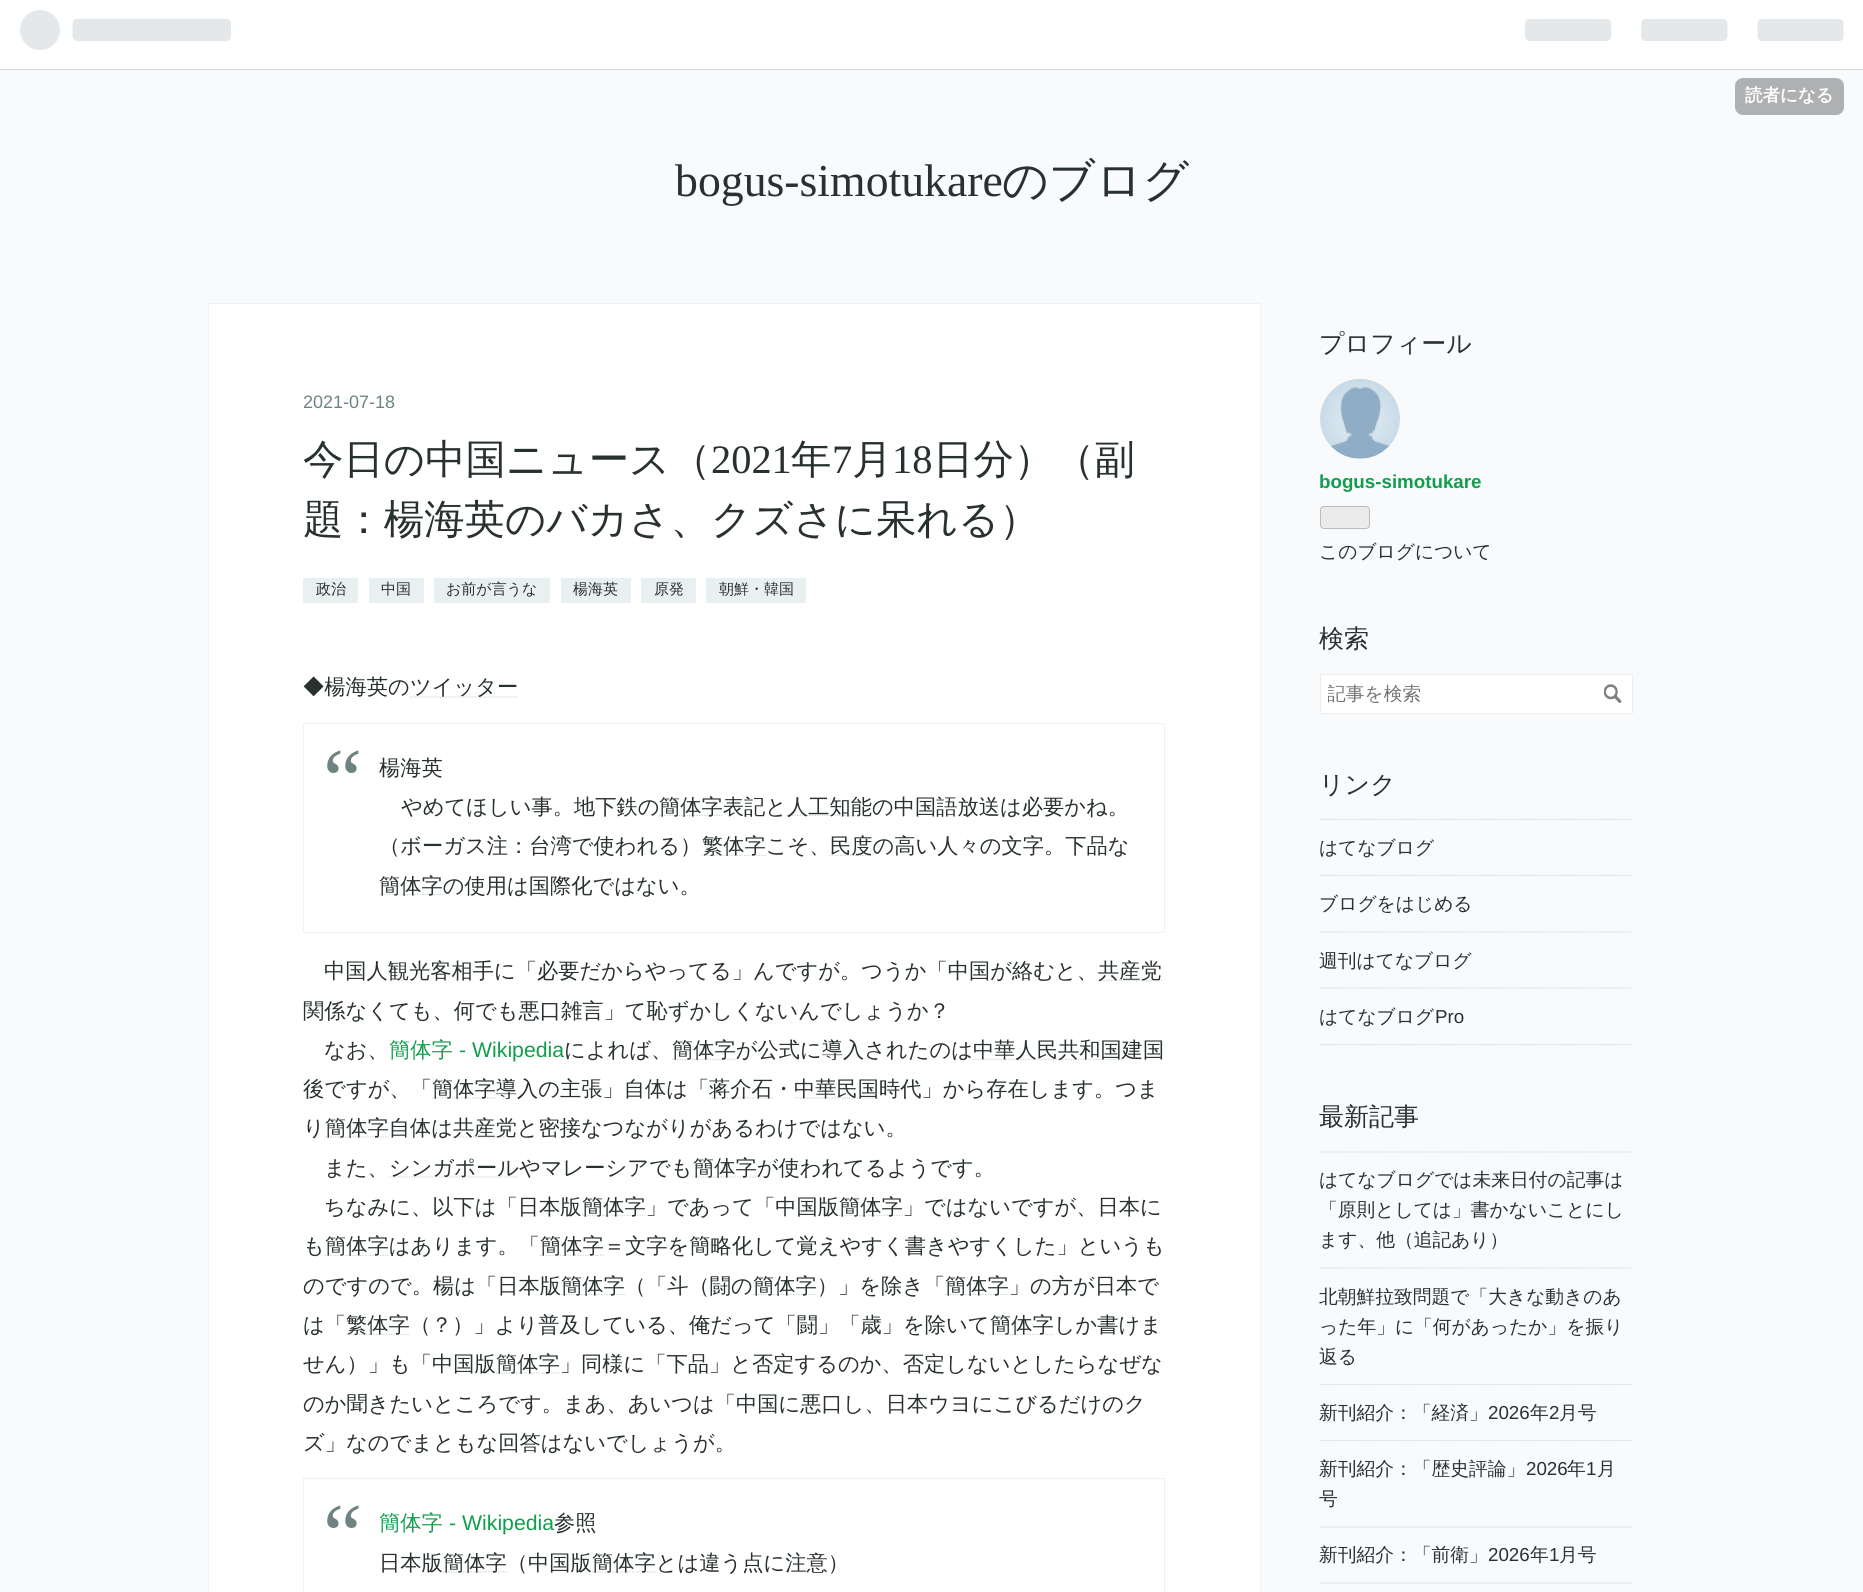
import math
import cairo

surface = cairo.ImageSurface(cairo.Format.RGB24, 1863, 1592)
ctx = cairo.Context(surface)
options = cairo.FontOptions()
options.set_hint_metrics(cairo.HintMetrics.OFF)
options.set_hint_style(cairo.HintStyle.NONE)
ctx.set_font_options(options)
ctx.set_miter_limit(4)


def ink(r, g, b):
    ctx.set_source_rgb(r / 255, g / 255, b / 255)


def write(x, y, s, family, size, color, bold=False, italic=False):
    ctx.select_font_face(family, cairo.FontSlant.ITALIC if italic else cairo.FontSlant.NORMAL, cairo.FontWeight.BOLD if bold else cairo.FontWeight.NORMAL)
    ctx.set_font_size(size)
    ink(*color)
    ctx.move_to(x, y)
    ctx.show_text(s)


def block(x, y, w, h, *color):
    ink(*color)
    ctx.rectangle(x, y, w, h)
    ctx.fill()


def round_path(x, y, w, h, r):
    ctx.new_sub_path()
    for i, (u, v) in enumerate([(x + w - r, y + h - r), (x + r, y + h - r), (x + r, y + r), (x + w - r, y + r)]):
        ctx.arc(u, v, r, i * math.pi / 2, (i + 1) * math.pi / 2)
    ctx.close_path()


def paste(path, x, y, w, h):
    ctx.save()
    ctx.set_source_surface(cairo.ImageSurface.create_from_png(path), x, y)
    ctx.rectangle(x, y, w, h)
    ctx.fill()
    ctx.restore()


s1 = dict(family="WenQuanYi Zen Hei", size=17.5, color=(255, 255, 255), bold=True)
s2 = dict(family="Liberation Serif", size=45.75, color=(41, 48, 48))
s3 = dict(family="WenQuanYi Zen Hei Medium", size=45.75, color=(41, 48, 48))
s4 = dict(family="Liberation Sans", size=18, color=(111, 131, 131))
s5 = dict(family="WenQuanYi Zen Hei Medium", size=40.4, color=(41, 48, 48))
s6 = dict(family="Liberation Serif", size=40.4, color=(41, 48, 48))
s7 = dict(family="WenQuanYi Zen Hei Medium", size=15, color=(41, 48, 48))
s8 = dict(family="WenQuanYi Zen Hei Medium", size=21.25, color=(41, 48, 48))
s9 = dict(family="Liberation Serif", size=88, color=(111, 131, 131))
s10 = dict(family="WenQuanYi Zen Hei Medium", size=21.25, color=(17, 158, 77))
s11 = dict(family="Liberation Sans", size=21.25, color=(17, 158, 77))
s12 = dict(family="WenQuanYi Zen Hei Medium", size=25, color=(41, 48, 48))
s13 = dict(family="Liberation Sans", size=18.75, color=(17, 158, 77), bold=True)
s14 = dict(family="WenQuanYi Zen Hei Medium", size=18.75, color=(41, 48, 48))
s15 = dict(family="WenQuanYi Zen Hei Medium", size=18.75, color=(117, 117, 117))
s16 = dict(family="Liberation Sans", size=18.75, color=(41, 48, 48))

ink(249, 250, 251)
ctx.paint()
block(0, 0, 1863, 69, 255, 255, 255)
block(0, 69, 1863, 1, 210, 216, 221)
paste("pic1.png", 20, 10, 211, 40)
paste("pic2.png", 1525, 19, 319, 22)
ink(174, 176, 178)
round_path(1735, 78, 109, 37, 8)
ctx.fill()
write(1745, 101, "読者になる", **s1)
write(675, 196, "bogus-simotukare", **s2)
write(1002, 196, "のブログ", **s3)
ink(255, 255, 255)
ctx.rectangle(208.5, 303.5, 1052, 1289)
ctx.fill_preserve()
ink(240, 241, 241)
ctx.set_line_width(1)
ctx.stroke()
write(303, 408, "2021-07-18", **s4)
write(303, 473, "今日の中国ニュース（", **s5)
write(711, 473, "2021", **s6)
write(791, 473, "年", **s5)
write(832, 473, "7", **s6)
write(852, 473, "月", **s5)
write(892, 473, "18", **s6)
write(933, 473, "日分）（副", **s5)
write(303, 533, "題：楊海英のバカさ、クズさに呆れる）", **s5)
block(303, 578, 55, 25, 233, 240, 242)
write(316, 594, "政治", **s7)
block(369, 578, 55, 25, 233, 240, 242)
write(381, 594, "中国", **s7)
block(434, 578, 116, 25, 233, 240, 242)
write(446, 594, "お前が言うな", **s7)
block(561, 578, 70, 25, 233, 240, 242)
write(573, 594, "楊海英", **s7)
block(641, 578, 55, 25, 233, 240, 242)
write(654, 594, "原発", **s7)
block(706, 578, 100, 25, 233, 240, 242)
write(719, 594, "朝鮮・韓国", **s7)
write(303, 694, "◆楊海英の", **s8)
ctx.new_path()
ctx.move_to(410, 697)
ctx.line_to(518, 697)
ink(207, 216, 216)
ctx.set_line_width(1.2)
ctx.set_dash([1.25, 1.25])
ctx.stroke()
write(410, 694, "ツイッター", **s8)
ctx.rectangle(303.5, 723.5, 861, 209)
ink(240, 241, 241)
ctx.set_line_width(1)
ctx.set_dash([])
ctx.stroke()
write(323, 809, "“", **s9)
write(379, 775, "楊海英", **s8)
write(401, 814, "やめてほしい事。地下鉄の", **s8)
ctx.new_path()
ctx.move_to(659, 815.5)
ctx.line_to(723, 815.5)
ink(207, 216, 216)
ctx.set_line_width(1.2)
ctx.set_dash([1.25, 1.25])
ctx.stroke()
write(659, 814, "簡体字表記と", **s8)
ctx.new_path()
ctx.move_to(787, 815.5)
ctx.line_to(872, 815.5)
ink(207, 216, 216)
ctx.stroke()
write(787, 814, "人工知能の中国語放送は必要かね。", **s8)
write(379, 853, "（ボーガス注：台湾で使われる）", **s8)
ctx.new_path()
ctx.move_to(701.5, 855.5)
ctx.line_to(765.5, 855.5)
ink(207, 216, 216)
ctx.stroke()
write(702, 853, "繁体字こそ、", **s8)
ctx.new_path()
ctx.move_to(830, 855.5)
ctx.line_to(872.5, 855.5)
ink(207, 216, 216)
ctx.stroke()
write(830, 853, "民度の高い人々の文字。下品な", **s8)
ctx.new_path()
ctx.move_to(379.5, 894.5)
ctx.line_to(443, 894.5)
ink(207, 216, 216)
ctx.stroke()
write(379, 893, "簡体字の使用は国際化ではない。", **s8)
write(324, 978, "中国人観光客相手に「必要だからやってる」んですが。つうか「中国が絡むと、", **s8)
ctx.new_path()
ctx.move_to(1098.5, 980.5)
ctx.line_to(1162, 980.5)
ink(207, 216, 216)
ctx.stroke()
write(1098, 978, "共産党", **s8)
write(303, 1018, "関係なくても、何でも悪口雑言」て恥ずかしくないんでしょうか？", **s8)
write(324, 1057, "なお、", **s8)
write(389, 1057, "簡体字", **s10)
write(459, 1057, "- Wikipedia", **s11)
write(564, 1057, "によれば、", **s8)
ctx.new_path()
ctx.move_to(672, 1059.5)
ctx.line_to(736, 1059.5)
ink(207, 216, 216)
ctx.stroke()
write(672, 1057, "簡体字が公式に導入されたのは", **s8)
ctx.new_path()
ctx.move_to(973, 1059.5)
ctx.line_to(1122, 1059.5)
ink(207, 216, 216)
ctx.stroke()
write(973, 1057, "中華人民共和国建国", **s8)
write(303, 1096, "後ですが、「", **s8)
ctx.new_path()
ctx.move_to(432, 1098)
ctx.line_to(496, 1098)
ink(207, 216, 216)
ctx.stroke()
write(432, 1096, "簡体字導入の主張」自体は「", **s8)
ctx.new_path()
ctx.move_to(709.5, 1098)
ctx.line_to(773, 1098)
ink(207, 216, 216)
ctx.stroke()
write(709, 1096, "蒋介石・", **s8)
ctx.new_path()
ctx.move_to(794.5, 1098)
ctx.line_to(879.5, 1098)
ink(207, 216, 216)
ctx.stroke()
write(794, 1096, "中華民国時代」から存在します。つま", **s8)
write(303, 1135, "り", **s8)
ctx.new_path()
ctx.move_to(325, 1137)
ctx.line_to(388.5, 1137)
ink(207, 216, 216)
ctx.stroke()
write(325, 1135, "簡体字自体は", **s8)
ctx.new_path()
ctx.move_to(453, 1137)
ctx.line_to(516.5, 1137)
ink(207, 216, 216)
ctx.stroke()
write(453, 1135, "共産党と密接なつながりがあるわけではない。", **s8)
write(324, 1175, "また、", **s8)
ctx.new_path()
ctx.move_to(389, 1177)
ctx.line_to(519, 1177)
ink(207, 216, 216)
ctx.stroke()
write(389, 1175, "シンガポールやマレーシアでも", **s8)
ctx.new_path()
ctx.move_to(692.5, 1177)
ctx.line_to(756.5, 1177)
ink(207, 216, 216)
ctx.stroke()
write(693, 1175, "簡体字が使われてるようです。", **s8)
write(324, 1214, "ちなみに、以下は「日本版", **s8)
ctx.new_path()
ctx.move_to(582, 1215.5)
ctx.line_to(645.5, 1215.5)
ink(207, 216, 216)
ctx.stroke()
write(582, 1214, "簡体字」であって「中国版", **s8)
ctx.new_path()
ctx.move_to(839, 1215.5)
ctx.line_to(902.5, 1215.5)
ink(207, 216, 216)
ctx.stroke()
write(839, 1214, "簡体字」ではないですが、日本に", **s8)
write(303, 1253, "も", **s8)
ctx.new_path()
ctx.move_to(325, 1255.5)
ctx.line_to(388.5, 1255.5)
ink(207, 216, 216)
ctx.stroke()
write(325, 1253, "簡体字はあります。「", **s8)
ctx.new_path()
ctx.move_to(540, 1255.5)
ctx.line_to(603.5, 1255.5)
ink(207, 216, 216)
ctx.stroke()
write(540, 1253, "簡体字＝文字を簡略化して覚えやすく書きやすくした」というも", **s8)
write(303, 1293, "のですので。楊は「日本版", **s8)
ctx.new_path()
ctx.move_to(561, 1294.5)
ctx.line_to(625, 1294.5)
ink(207, 216, 216)
ctx.stroke()
write(561, 1293, "簡体字（「斗（闘の", **s8)
ctx.new_path()
ctx.move_to(753, 1294.5)
ctx.line_to(816.5, 1294.5)
ink(207, 216, 216)
ctx.stroke()
write(753, 1293, "簡体字）」を除き「", **s8)
ctx.new_path()
ctx.move_to(945, 1294.5)
ctx.line_to(1009, 1294.5)
ink(207, 216, 216)
ctx.stroke()
write(945, 1293, "簡体字」の方が日本で", **s8)
write(303, 1332, "は「", **s8)
ctx.new_path()
ctx.move_to(346, 1334.5)
ctx.line_to(410, 1334.5)
ink(207, 216, 216)
ctx.stroke()
write(346, 1332, "繁体字（？）」より普及している、俺だって「闘」「歳」を除いて", **s8)
ctx.new_path()
ctx.move_to(989.5, 1334.5)
ctx.line_to(1053.5, 1334.5)
ink(207, 216, 216)
ctx.stroke()
write(990, 1332, "簡体字しか書けま", **s8)
write(303, 1371, "せん）」も「中国版", **s8)
ctx.new_path()
ctx.move_to(496, 1373)
ctx.line_to(559.5, 1373)
ink(207, 216, 216)
ctx.stroke()
write(496, 1371, "簡体字」同様に「下品」と否定するのか、否定しないとしたらなぜな", **s8)
write(303, 1411, "のか聞きたいところです。まあ、あいつは「中国に悪口し、日本ウヨにこびるだけのク", **s8)
write(303, 1450, "ズ」なのでまともな回答はないでしょうが。", **s8)
ctx.rectangle(303.5, 1478.5, 861, 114)
ink(240, 241, 241)
ctx.set_line_width(1)
ctx.set_dash([])
ctx.stroke()
write(323, 1564, "“", **s9)
write(379, 1530, "簡体字", **s10)
write(449, 1530, "- Wikipedia", **s11)
write(554, 1530, "参照", **s8)
write(379, 1570, "日本版", **s8)
ctx.new_path()
ctx.move_to(443, 1572)
ctx.line_to(507, 1572)
ink(207, 216, 216)
ctx.set_line_width(1.2)
ctx.set_dash([1.25, 1.25])
ctx.stroke()
write(443, 1570, "簡体字（中国版", **s8)
ctx.new_path()
ctx.move_to(592, 1572)
ctx.line_to(655.5, 1572)
ink(207, 216, 216)
ctx.stroke()
write(592, 1570, "簡体字とは違う点に注意）", **s8)
write(1319, 352, "プロフィール", **s12)
paste("pic3.png", 1320, 379, 80, 80)
write(1319, 488, "bogus-simotukare", **s13)
ink(235, 235, 235)
round_path(1320.5, 506.5, 49, 22, 3.5)
ctx.fill_preserve()
ink(187, 187, 187)
ctx.set_line_width(1)
ctx.set_dash([])
ctx.stroke()
write(1319, 558, "このブログについて", **s14)
write(1319, 647, "検索", **s12)
ink(255, 255, 255)
ctx.rectangle(1320.5, 674.5, 312, 39)
ctx.fill_preserve()
ink(238, 238, 238)
ctx.stroke()
ctx.save()
ctx.rectangle(1328, 683, 266, 23)
ctx.clip()
write(1327, 700, "記事を検索", **s15)
ctx.restore()
paste("pic4.png", 1603, 684, 19, 19)
write(1319, 793, "リンク", **s12)
ctx.new_path()
ctx.move_to(1320, 819.5)
ctx.line_to(1632.5, 819.5)
ink(207, 216, 216)
ctx.set_line_width(1.2)
ctx.set_dash([1.25, 1.25])
ctx.stroke()
write(1319, 854, "はてなブログ", **s14)
ctx.new_path()
ctx.move_to(1320, 875.5)
ctx.line_to(1632.5, 875.5)
ink(207, 216, 216)
ctx.stroke()
write(1319, 910, "ブログをはじめる", **s14)
ctx.new_path()
ctx.move_to(1320, 932)
ctx.line_to(1632.5, 932)
ink(207, 216, 216)
ctx.stroke()
write(1319, 967, "週刊はてなブログ", **s14)
ctx.new_path()
ctx.move_to(1320, 988)
ctx.line_to(1632.5, 988)
ink(207, 216, 216)
ctx.stroke()
ctx.new_path()
ctx.move_to(1320, 1044.5)
ctx.line_to(1632.5, 1044.5)
ctx.stroke()
write(1319, 1023, "はてなブログ", **s14)
write(1435, 1023, "Pro", **s16)
write(1319, 1125, "最新記事", **s12)
ctx.new_path()
ctx.move_to(1320, 1152)
ctx.line_to(1632.5, 1152)
ink(207, 216, 216)
ctx.stroke()
write(1319, 1186, "はてなブログでは未来日付の記事は", **s14)
write(1319, 1216, "「原則としては」書かないことにし", **s14)
write(1319, 1246, "ます、他（追記あり）", **s14)
ctx.new_path()
ctx.move_to(1320, 1268)
ctx.line_to(1632.5, 1268)
ink(207, 216, 216)
ctx.stroke()
write(1319, 1303, "北朝鮮拉致問題で「大きな動きのあ", **s14)
write(1319, 1333, "った年」に「何があったか」を振り", **s14)
write(1319, 1363, "返る", **s14)
ctx.new_path()
ctx.move_to(1320, 1384.5)
ctx.line_to(1632.5, 1384.5)
ink(207, 216, 216)
ctx.stroke()
write(1319, 1419, "新刊紹介：「経済」", **s14)
write(1488, 1419, "2026", **s16)
write(1530, 1419, "年", **s14)
write(1549, 1419, "2", **s16)
write(1559, 1419, "月号", **s14)
ctx.new_path()
ctx.move_to(1320, 1440.5)
ctx.line_to(1632.5, 1440.5)
ink(207, 216, 216)
ctx.stroke()
write(1319, 1475, "新刊紹介：「歴史評論」", **s14)
write(1526, 1475, "2026", **s16)
write(1567, 1475, "年", **s14)
write(1586, 1475, "1", **s16)
write(1597, 1475, "月", **s14)
write(1319, 1505, "号", **s14)
ctx.new_path()
ctx.move_to(1320, 1527)
ctx.line_to(1632.5, 1527)
ink(207, 216, 216)
ctx.stroke()
ctx.new_path()
ctx.move_to(1320, 1583)
ctx.line_to(1632.5, 1583)
ctx.stroke()
write(1319, 1561, "新刊紹介：「前衛」", **s14)
write(1488, 1561, "2026", **s16)
write(1530, 1561, "年", **s14)
write(1549, 1561, "1", **s16)
write(1559, 1561, "月号", **s14)
surface.write_to_png("screenshot.png")
